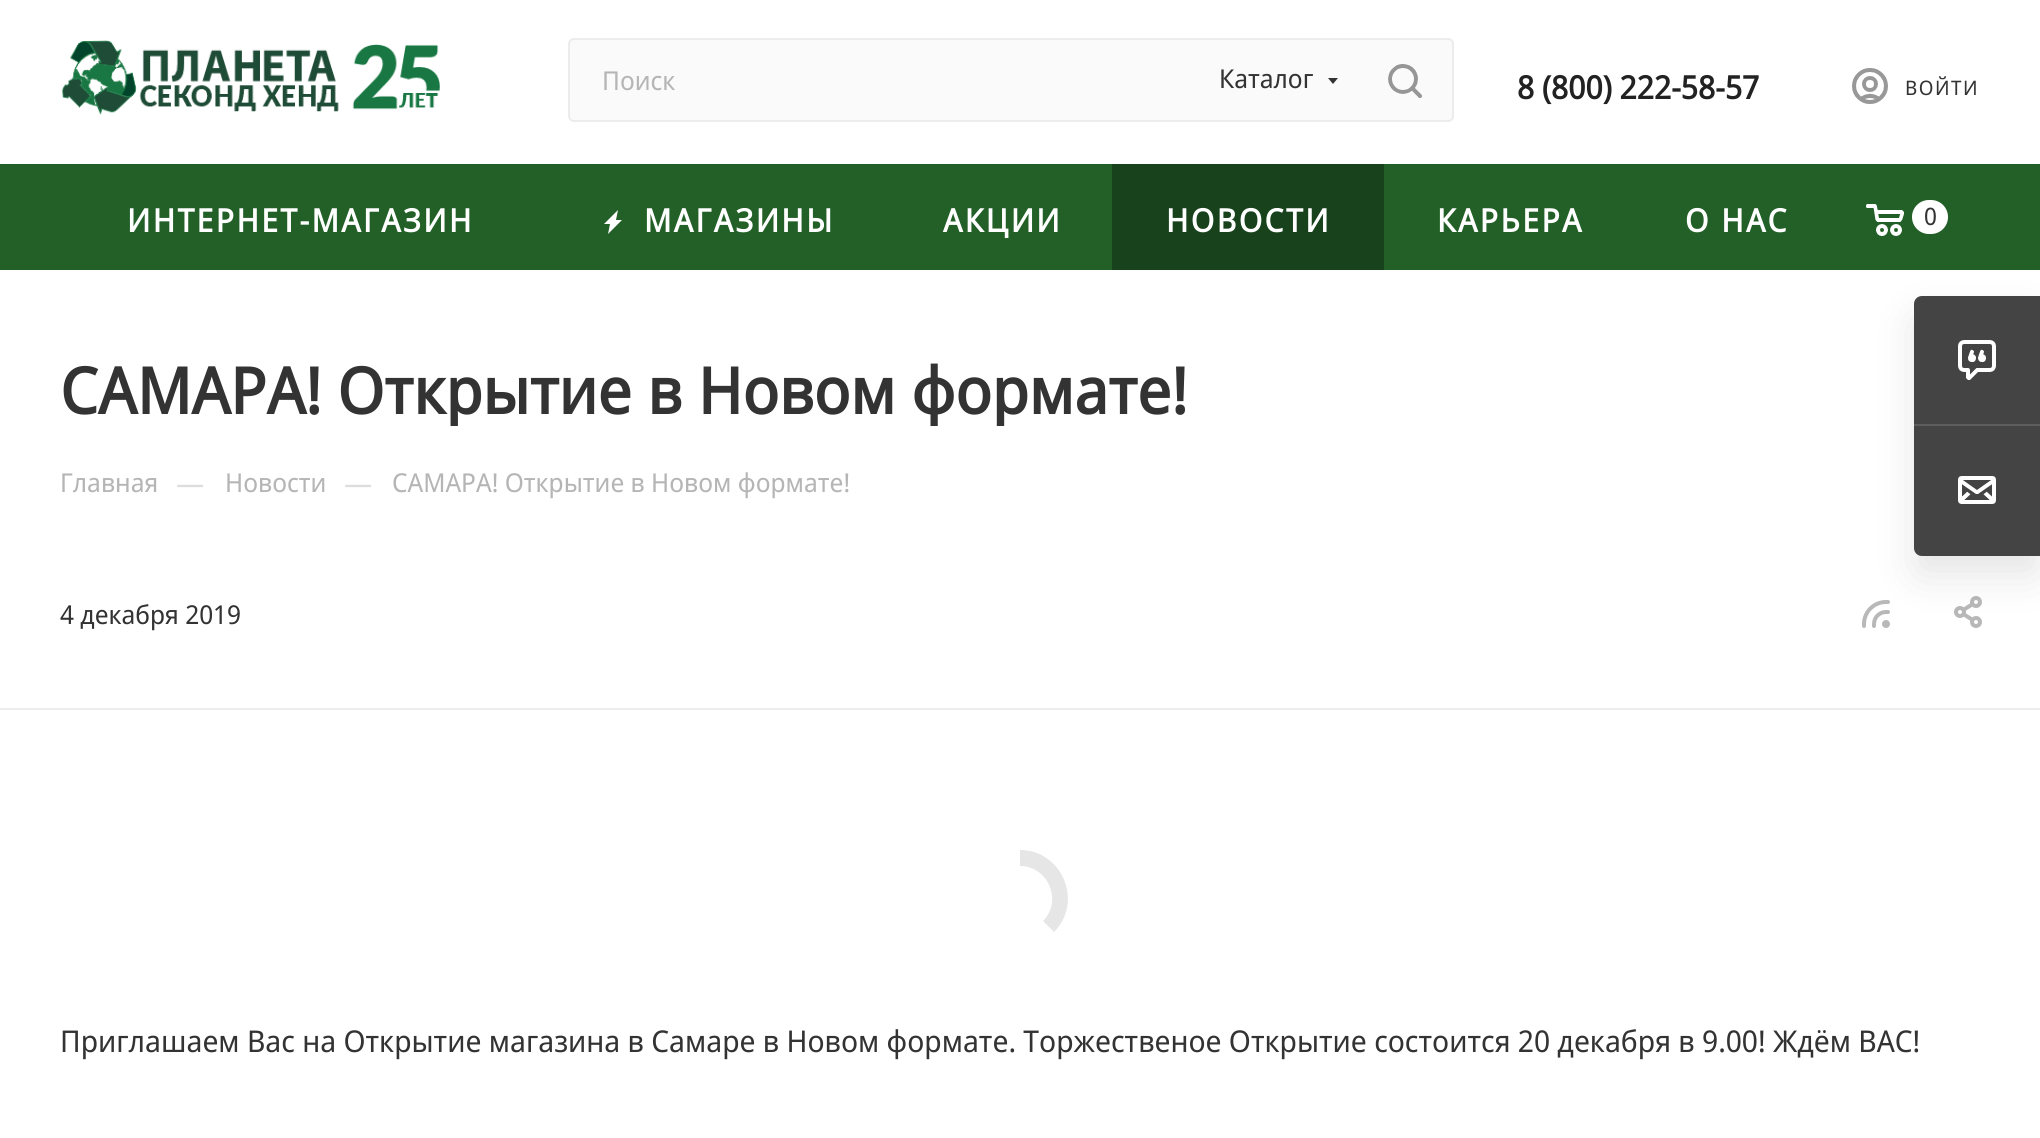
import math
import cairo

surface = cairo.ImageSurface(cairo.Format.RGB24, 2040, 1138)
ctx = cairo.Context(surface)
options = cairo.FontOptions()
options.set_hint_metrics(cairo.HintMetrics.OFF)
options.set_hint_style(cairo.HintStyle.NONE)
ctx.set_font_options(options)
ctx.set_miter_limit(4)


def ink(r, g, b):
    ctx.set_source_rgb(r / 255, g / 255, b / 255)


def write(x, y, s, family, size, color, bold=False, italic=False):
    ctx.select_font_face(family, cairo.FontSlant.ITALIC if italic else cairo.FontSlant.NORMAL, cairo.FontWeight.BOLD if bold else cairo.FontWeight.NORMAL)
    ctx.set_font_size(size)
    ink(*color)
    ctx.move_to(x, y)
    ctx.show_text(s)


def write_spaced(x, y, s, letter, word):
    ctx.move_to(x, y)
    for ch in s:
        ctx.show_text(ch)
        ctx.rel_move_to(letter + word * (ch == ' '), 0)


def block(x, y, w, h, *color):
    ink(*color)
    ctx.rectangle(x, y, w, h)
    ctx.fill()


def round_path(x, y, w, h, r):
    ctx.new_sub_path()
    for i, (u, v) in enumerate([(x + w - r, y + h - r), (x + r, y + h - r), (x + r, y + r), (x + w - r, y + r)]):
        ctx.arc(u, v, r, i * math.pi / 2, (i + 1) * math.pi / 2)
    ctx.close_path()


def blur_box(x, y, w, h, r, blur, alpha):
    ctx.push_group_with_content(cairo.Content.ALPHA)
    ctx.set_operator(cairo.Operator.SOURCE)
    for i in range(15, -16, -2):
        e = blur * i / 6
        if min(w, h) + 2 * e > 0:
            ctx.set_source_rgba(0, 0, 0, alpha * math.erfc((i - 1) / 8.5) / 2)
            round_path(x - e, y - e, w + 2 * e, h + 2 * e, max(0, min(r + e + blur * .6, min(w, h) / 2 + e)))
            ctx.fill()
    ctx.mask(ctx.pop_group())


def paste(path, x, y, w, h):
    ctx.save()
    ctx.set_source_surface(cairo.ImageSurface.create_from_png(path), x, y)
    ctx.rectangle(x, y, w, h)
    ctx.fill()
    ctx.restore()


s1 = dict(family="Noto Sans Display", size=26, color=(182, 181, 181))
s2 = dict(family="Noto Sans Display", size=26, color=(51, 51, 51))
s3 = dict(family="Noto Sans Display", size=32, color=(34, 34, 34), bold=True)
s4 = dict(family="Noto Sans Display", size=24, color=(51, 51, 51))
s5 = dict(family="Noto Sans Display", size=64, color=(51, 51, 51), bold=True)
s6 = dict(family="Noto Sans Display", size=30, color=(221, 221, 221))
s7 = dict(family="Noto Sans Display", size=30, color=(51, 51, 51))

ink(255, 255, 255)
ctx.paint()
paste("pic1.png", 61, 40, 379, 75)
ink(250, 250, 250)
round_path(569, 39, 884, 82, 5)
ctx.fill_preserve()
ink(236, 236, 236)
ctx.stroke()
write(602, 90, "Поиск", **s1)
write(1219, 88, "Каталог", **s2)
ctx.set_fill_rule(cairo.FillRule.EVEN_ODD)
ctx.new_path()
ctx.move_to(1328, 78)
ctx.line_to(1338, 78)
ctx.line_to(1333, 84)
ctx.close_path()
ctx.fill()
paste("pic2.png", 1388, 64, 34, 34)
write(1517, 99, "8 (800) 222-58-57", **s3)
paste("pic3.png", 1852, 68, 36, 36)
ctx.select_font_face("Noto Sans Display")
ctx.set_font_size(20)
ink(51, 51, 51)
write_spaced(1905, 95, "ВОЙТИ", 1.5, 0)
block(0, 164, 2040, 106, 34, 96, 39)
ctx.select_font_face("Noto Sans Display", cairo.FontSlant.NORMAL, cairo.FontWeight.BOLD)
ctx.set_font_size(32)
ink(255, 255, 255)
write_spaced(127, 232, "ИНТЕРНЕТ-МАГАЗИН", 2.4, 0)
ctx.new_path()
ctx.move_to(618, 210)
ctx.line_to(604, 224)
ctx.line_to(610, 224)
ctx.line_to(608, 234)
ctx.line_to(622, 220)
ctx.line_to(616, 220)
ctx.close_path()
ctx.fill()
write_spaced(644, 232, "МАГАЗИНЫ", 2.4, 0)
write_spaced(943, 232, "АКЦИИ", 2.4, 0)
block(1112, 164, 272, 106, 23, 66, 27)
ink(255, 255, 255)
write_spaced(1166, 232, "НОВОСТИ", 2.4, 0)
write_spaced(1437, 232, "КАРЬЕРА", 2.4, 0)
write_spaced(1685, 232, "О НАС", 2.4, 0)
paste("pic4.png", 1866, 204, 38, 32)
round_path(1912, 200, 36, 34, 17)
ctx.fill()
write(1924, 225, "0", **s4)
ctx.save()
ctx.set_fill_rule(cairo.FillRule.WINDING)
ctx.rectangle(60, 354, 1920, 72)
ctx.clip()
write(60, 414, "САМАРА! Открытие в Новом формате!", **s5)
ctx.restore()
write(60, 492, "Главная", **s1)
write(176, 494, "—", **s6)
write(225, 492, "Новости", **s1)
write(344, 494, "—", **s6)
write(392, 492, "САМАРА! Открытие в Новом формате!", **s1)
write(60, 624, "4 декабря 2019", **s2)
paste("pic5.png", 1862, 600, 28, 28)
paste("pic6.png", 1954, 596, 28, 32)
block(0, 708, 2040, 2, 236, 236, 236)
ink(230, 230, 230)
ctx.set_fill_rule(cairo.FillRule.WINDING)
ctx.new_path()
ctx.move_to(1020, 850)
ctx.curve_to(1062, 850, 1084, 902, 1054, 932)
ctx.line_to(1043, 921)
ctx.curve_to(1063, 901, 1048, 866, 1020, 866)
ctx.close_path()
ctx.fill()
write(60, 1052, "Приглашаем Вас на Открытие магазина в Самаре в Новом формате. Торжественое Открытие состоится 20 декабря в 9.00! Ждём ВАС!", **s7)
ink(0, 0, 0)
blur_box(1914, 316, 126, 260, 8, 20, 0.1)
ink(68, 68, 68)
ctx.new_path()
ctx.move_to(1922, 296)
ctx.line_to(2040, 296)
ctx.line_to(2040, 556)
ctx.line_to(1922, 556)
ctx.curve_to(1917.5, 556, 1914, 552.5, 1914, 548)
ctx.line_to(1914, 304)
ctx.curve_to(1914, 299.5, 1917.5, 296, 1922, 296)
ctx.close_path()
ctx.fill()
block(1914, 424, 126, 2, 93, 93, 93)
paste("pic7.png", 1958, 340, 38, 40)
paste("pic8.png", 1958, 476, 38, 28)
surface.write_to_png("screenshot.png")
